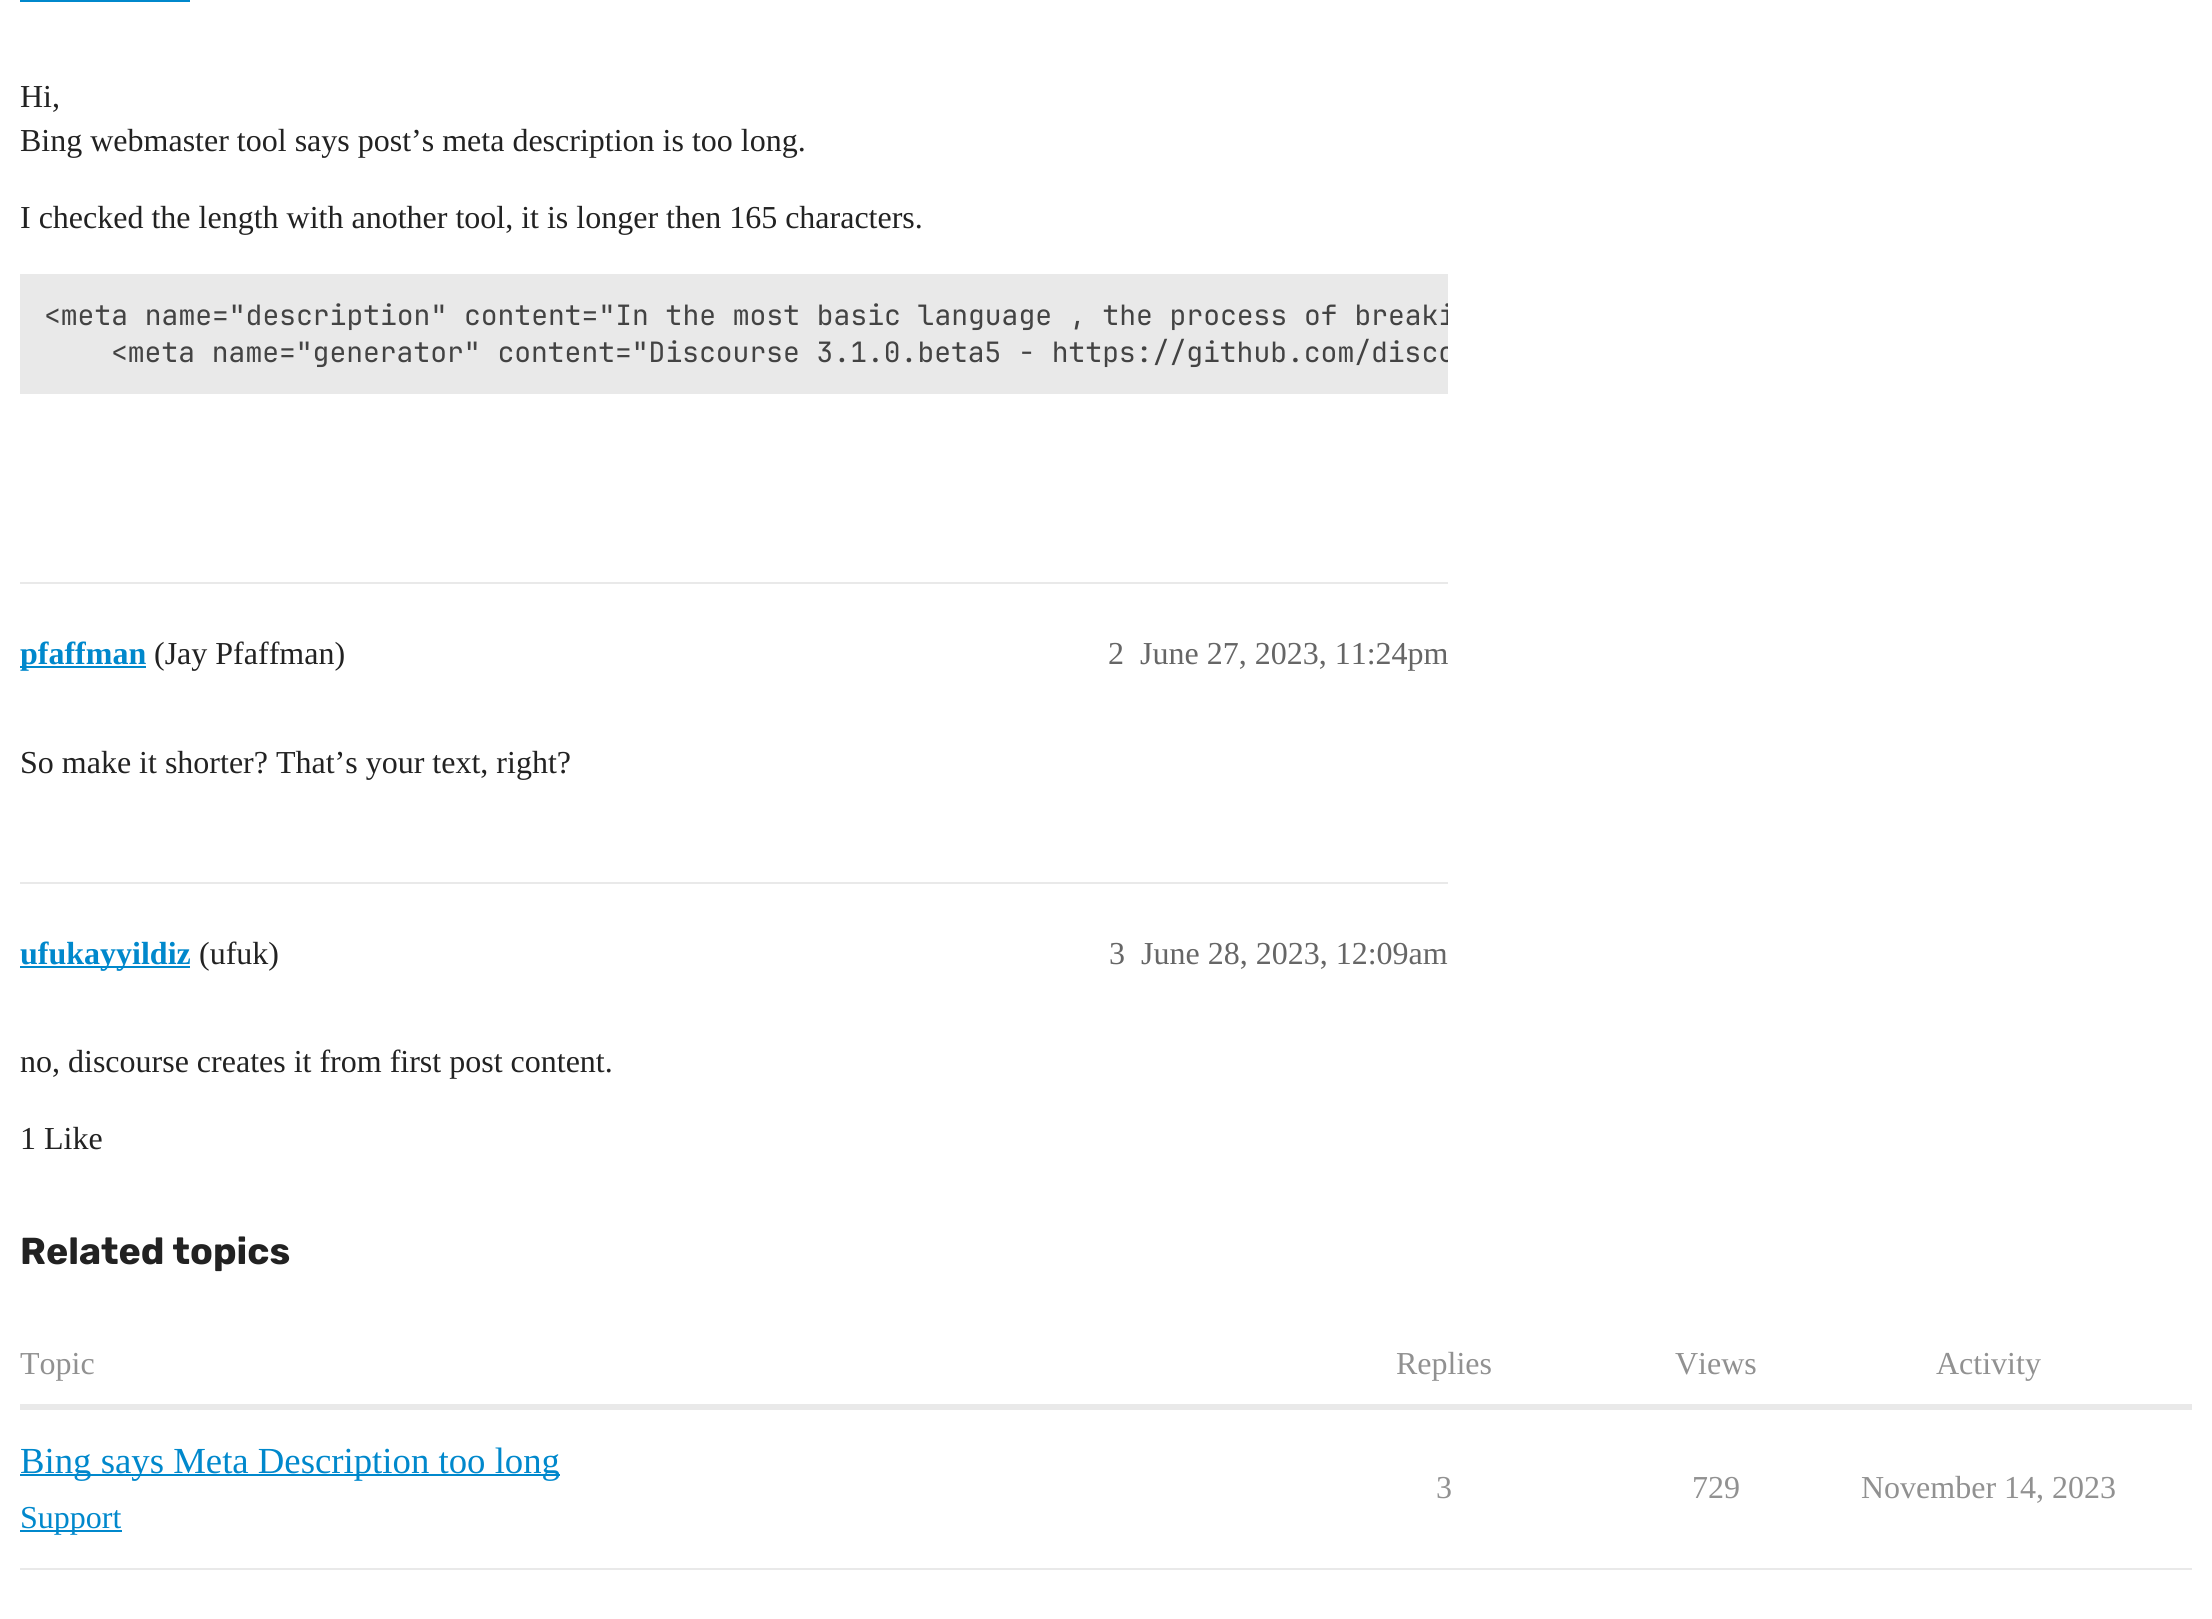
import math
import cairo

surface = cairo.ImageSurface(cairo.Format.RGB24, 2212, 1619)
ctx = cairo.Context(surface)
options = cairo.FontOptions()
options.set_hint_metrics(cairo.HintMetrics.OFF)
options.set_hint_style(cairo.HintStyle.NONE)
ctx.set_font_options(options)
ctx.set_miter_limit(4)


def ink(r, g, b):
    ctx.set_source_rgb(r / 255, g / 255, b / 255)


def write(x, y, s, family, size, color, bold=False, italic=False):
    ctx.select_font_face(family, cairo.FontSlant.ITALIC if italic else cairo.FontSlant.NORMAL, cairo.FontWeight.BOLD if bold else cairo.FontWeight.NORMAL)
    ctx.set_font_size(size)
    ink(*color)
    ctx.move_to(x, y)
    ctx.show_text(s)


def block(x, y, w, h, *color):
    ink(*color)
    ctx.rectangle(x, y, w, h)
    ctx.fill()


def round_path(x, y, w, h, r):
    ctx.new_sub_path()
    for i, (u, v) in enumerate([(x + w - r, y + h - r), (x + r, y + h - r), (x + r, y + r), (x + w - r, y + r)]):
        ctx.arc(u, v, r, i * math.pi / 2, (i + 1) * math.pi / 2)
    ctx.close_path()


s1 = dict(family="Liberation Serif", size=32, color=(34, 34, 34))
s2 = dict(family="JetBrains Mono", size=28, color=(67, 67, 67))
s3 = dict(family="Liberation Serif", size=32, color=(0, 136, 204), bold=True)
s4 = dict(family="Liberation Serif", size=32, color=(102, 102, 102))
s5 = dict(family="Rubik", size=37.5, color=(34, 34, 34), bold=True)
s6 = dict(family="Liberation Serif", size=32, color=(145, 145, 145))
s7 = dict(family="Liberation Serif", size=36.75, color=(0, 136, 204))
s8 = dict(family="Liberation Serif", size=32, color=(0, 136, 204))

ink(255, 255, 255)
ctx.paint()
block(20, 0, 170, 2, 0, 136, 204)
write(20, 107, "Hi,", **s1)
write(20, 151, "Bing webmaster tool says post’s meta description is too long.", **s1)
write(20, 228, "I checked the length with another tool, it is longer then 165 characters.", **s1)
block(20, 274, 1428, 120, 233, 233, 233)
ctx.save()
round_path(20, 274, 1428, 120, 16)
ctx.clip()
write(44, 325, "<meta name=\"description\" content=\"In the most basic language , the process of breaki", **s2)
write(111, 362, "<meta name=\"generator\" content=\"Discourse 3.1.0.beta5 - https://github.com/disco", **s2)
ctx.restore()
block(20, 582, 1428, 2, 233, 233, 233)
block(20, 666, 126, 2, 0, 136, 204)
write(20, 664, "pfaffman", **s3)
write(154, 664, "(Jay Pfaffman)", **s1)
write(1108, 664, "2", **s4)
write(1140, 664, "June 27, 2023, 11:24pm", **s4)
write(20, 773, "So make it shorter? That’s your text, right?", **s1)
block(20, 882, 1428, 2, 233, 233, 233)
block(20, 966, 170, 2, 0, 136, 204)
write(20, 964, "ufukayyildiz", **s3)
write(199, 964, "(ufuk)", **s1)
write(1109, 964, "3", **s4)
write(1141, 964, "June 28, 2023, 12:09am", **s4)
write(20, 1072, "no, discourse creates it from first post content.", **s1)
write(20, 1149, "1 Like", **s1)
write(20, 1264, "Related topics", **s5)
write(20, 1374, "Topic", **s6)
write(1396, 1374, "Replies", **s6)
write(1675, 1374, "Views", **s6)
write(1936, 1374, "Activity", **s6)
block(20, 1404, 2172, 6, 233, 233, 233)
block(20, 1568, 2172, 2, 233, 233, 233)
block(20, 1474, 540, 2, 0, 136, 204)
write(20, 1473, "Bing says Meta Description too long", **s7)
block(20, 1530, 102, 2, 0, 136, 204)
write(20, 1528, "Support", **s8)
write(1436, 1498, "3", **s6)
write(1692, 1498, "729", **s6)
write(1861, 1498, "November 14, 2023", **s6)
surface.write_to_png("screenshot.png")
